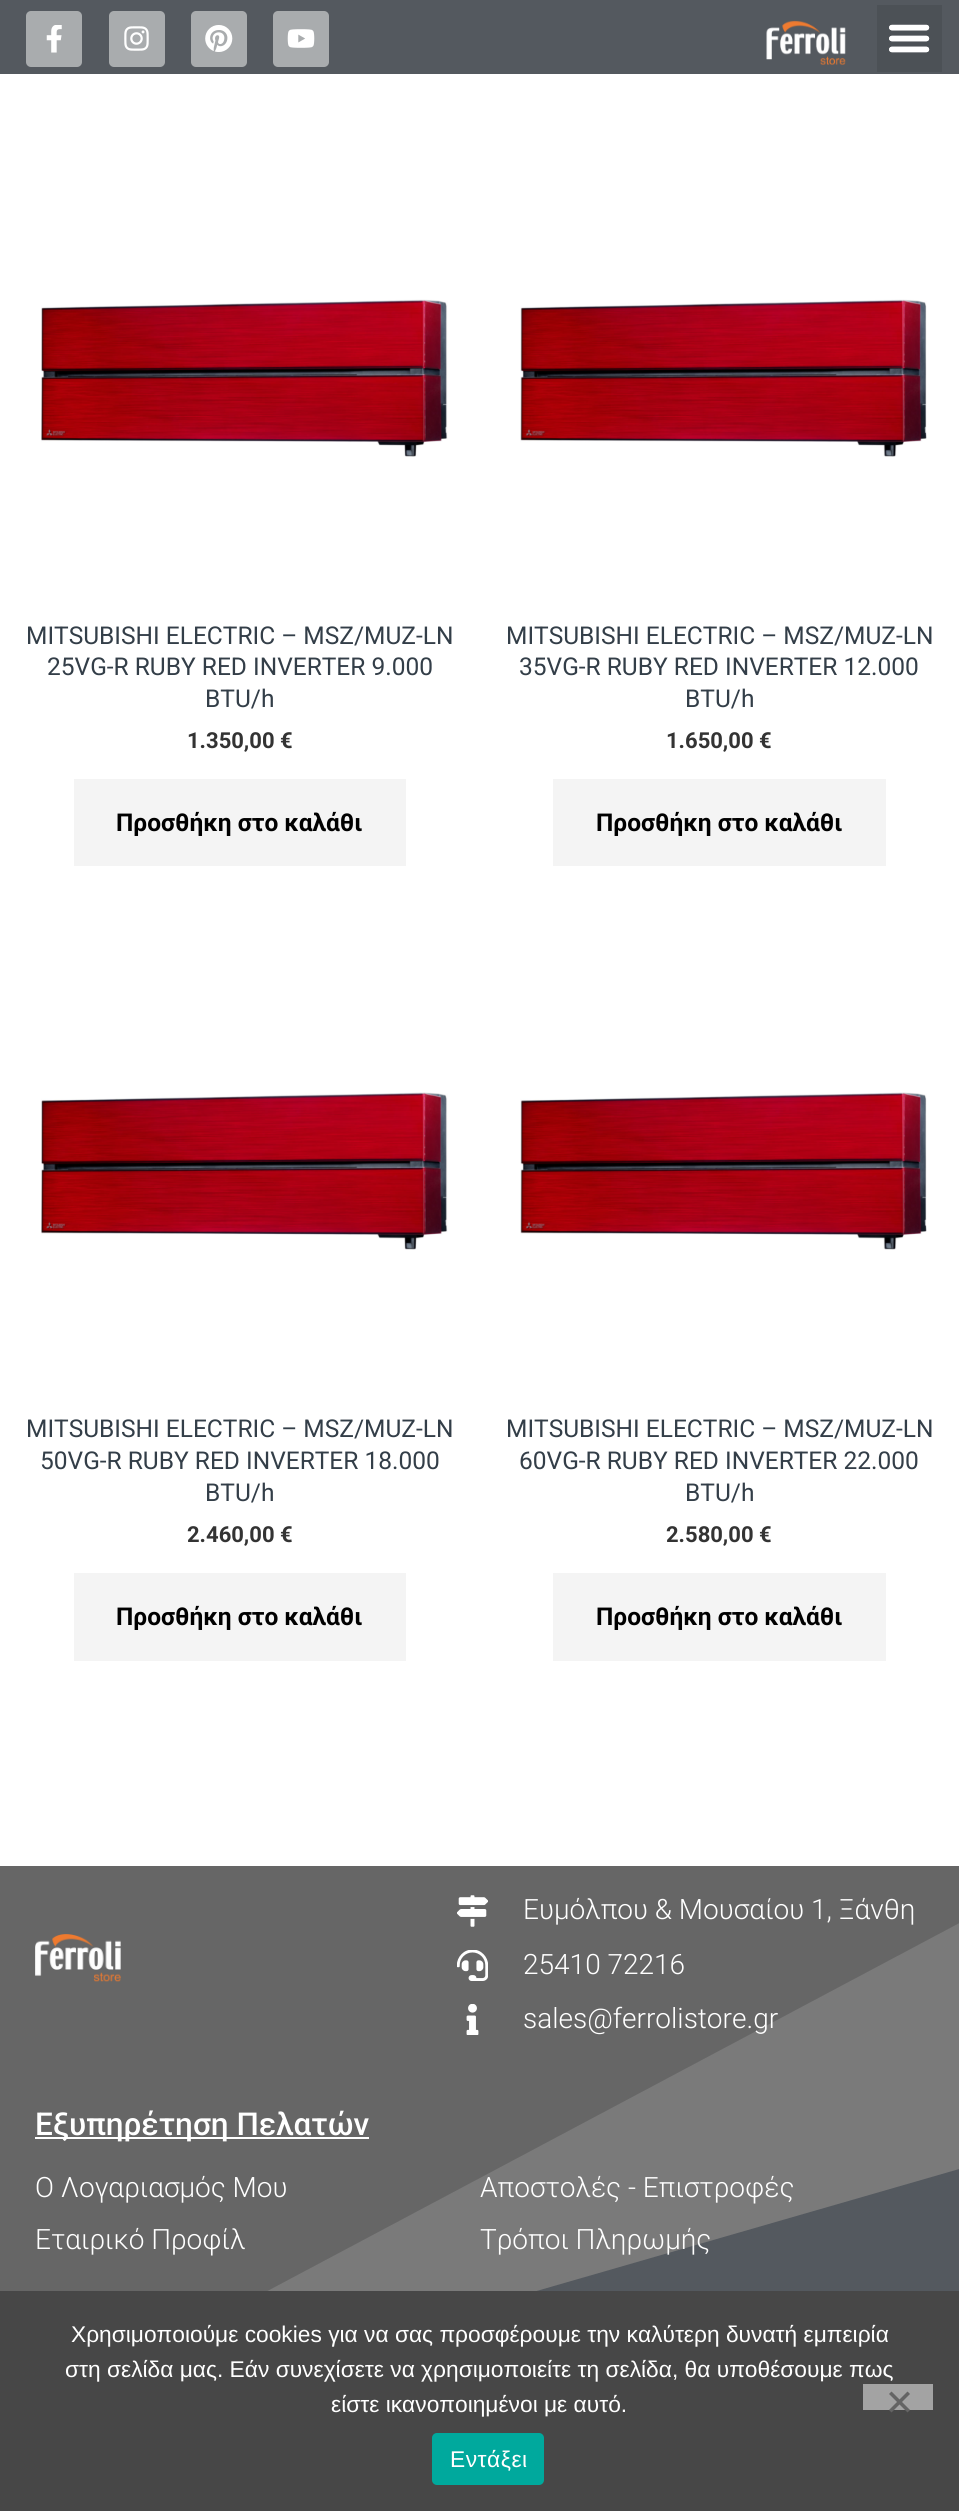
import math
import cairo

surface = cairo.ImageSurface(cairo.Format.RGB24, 959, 2511)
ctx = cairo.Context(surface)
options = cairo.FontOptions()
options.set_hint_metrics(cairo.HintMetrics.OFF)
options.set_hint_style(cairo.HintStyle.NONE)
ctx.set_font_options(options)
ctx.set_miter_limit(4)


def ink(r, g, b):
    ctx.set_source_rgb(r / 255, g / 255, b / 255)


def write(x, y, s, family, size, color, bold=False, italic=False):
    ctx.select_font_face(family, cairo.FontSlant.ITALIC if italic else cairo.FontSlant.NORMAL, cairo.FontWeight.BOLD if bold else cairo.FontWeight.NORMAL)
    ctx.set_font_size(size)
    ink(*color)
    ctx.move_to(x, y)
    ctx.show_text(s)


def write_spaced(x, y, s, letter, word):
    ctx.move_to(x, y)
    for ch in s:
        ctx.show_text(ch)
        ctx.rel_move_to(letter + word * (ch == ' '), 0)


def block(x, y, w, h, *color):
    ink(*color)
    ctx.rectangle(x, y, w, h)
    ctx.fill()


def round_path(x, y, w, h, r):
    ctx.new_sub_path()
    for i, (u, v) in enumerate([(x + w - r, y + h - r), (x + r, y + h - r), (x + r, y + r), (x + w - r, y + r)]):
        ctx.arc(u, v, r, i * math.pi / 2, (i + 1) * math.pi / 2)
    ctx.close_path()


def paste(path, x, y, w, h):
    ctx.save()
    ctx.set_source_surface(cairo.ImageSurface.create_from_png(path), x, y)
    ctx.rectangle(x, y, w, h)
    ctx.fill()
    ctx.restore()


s1 = dict(family="Roboto", size=24.5, color=(51, 62, 72))
s2 = dict(family="Roboto", size=22, color=(51, 51, 51), bold=True)
s3 = dict(family="Roboto", size=24.5, color=(0, 0, 0), bold=True)
s4 = dict(family="Roboto Light", size=28, color=(255, 255, 255))
s5 = dict(family="Roboto Medium", size=31.5, color=(255, 255, 255))
s6 = dict(family="Liberation Sans", size=22.75, color=(255, 255, 255))

ink(255, 255, 255)
ctx.paint()
block(0, 0, 959, 74, 84, 89, 95)
ink(169, 172, 174)
round_path(26, 11, 56, 56, 5)
ctx.fill()
paste("pic1.png", 46, 25, 16, 28)
round_path(109, 11, 56, 56, 5)
ctx.fill()
paste("pic2.png", 124, 26, 25, 25)
round_path(191, 11, 56, 56, 5)
ctx.fill()
paste("pic3.png", 205, 25, 28, 27)
round_path(273, 11, 56, 56, 5)
ctx.fill()
paste("pic4.png", 287, 29, 28, 19)
paste("pic5.png", 766, 20, 80, 45)
block(877, 5, 65, 67, 76, 81, 86)
paste("pic6.png", 889, 24, 41, 29)
paste("pic7.png", 889, 24, 41, 29)
paste("pic8.png", 41, 299, 407, 158)
write(26, 644, "MITSUBISHI ELECTRIC – MSZ/MUZ-LN", **s1)
write(47, 675, "25VG-R RUBY RED INVERTER 9.000", **s1)
write(205, 707, "BTU/h", **s1)
write(187, 748, "1.350,00 €", **s2)
block(74, 779, 332, 87, 244, 244, 244)
write(116, 831, "Προσθήκη στο καλάθι", **s3)
paste("pic9.png", 520, 299, 407, 158)
write(506, 644, "MITSUBISHI ELECTRIC – MSZ/MUZ-LN", **s1)
write(519, 675, "35VG-R RUBY RED INVERTER 12.000", **s1)
write(685, 707, "BTU/h", **s1)
write(666, 748, "1.650,00 €", **s2)
block(553, 779, 333, 87, 244, 244, 244)
write(596, 831, "Προσθήκη στο καλάθι", **s3)
paste("pic10.png", 41, 1092, 407, 158)
write(26, 1437, "MITSUBISHI ELECTRIC – MSZ/MUZ-LN", **s1)
write(40, 1469, "50VG-R RUBY RED INVERTER 18.000", **s1)
write(205, 1501, "BTU/h", **s1)
write(187, 1542, "2.460,00 €", **s2)
block(74, 1573, 332, 88, 244, 244, 244)
write(116, 1625, "Προσθήκη στο καλάθι", **s3)
paste("pic11.png", 520, 1092, 407, 158)
write(506, 1437, "MITSUBISHI ELECTRIC – MSZ/MUZ-LN", **s1)
write(519, 1469, "60VG-R RUBY RED INVERTER 22.000", **s1)
write(685, 1501, "BTU/h", **s1)
write(666, 1542, "2.580,00 €", **s2)
block(553, 1573, 333, 88, 244, 244, 244)
write(596, 1625, "Προσθήκη στο καλάθι", **s3)
block(267, 1923, 692, 368, 122, 122, 122)
ctx.save()
ctx.rectangle(0, 1866, 959, 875)
ctx.clip()
ink(102, 102, 102)
ctx.new_path()
ctx.move_to(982, 1911)
ctx.line_to(-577, 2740)
ctx.line_to(-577, 1865)
ctx.line_to(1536, 1865)
ctx.line_to(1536, 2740)
ctx.close_path()
ctx.fill()
ctx.restore()
paste("pic12.png", 35, 1934, 86, 48)
paste("pic13.png", 457, 1895, 31, 32)
write(523, 1919, "Ευμόλπου & Μουσαίου 1, Ξάνθη", **s4)
paste("pic14.png", 457, 1950, 31, 31)
write(523, 1974, "25410 72216", **s4)
paste("pic15.png", 466, 2004, 13, 31)
write(523, 2028, "sales@ferrolistore.gr", **s4)
block(35, 2137, 334, 2, 255, 255, 255)
write(35, 2135, "Εξυπηρέτηση Πελατών", **s5)
ink(84, 89, 95)
ctx.new_path()
ctx.move_to(-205, 2505)
ctx.line_to(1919, 1892)
ctx.line_to(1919, 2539)
ctx.line_to(-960, 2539)
ctx.line_to(-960, 1892)
ctx.close_path()
ctx.fill()
write(35, 2197, "Ο Λογαριασμός Μου", **s4)
write(35, 2249, "Εταιρικό Προφίλ", **s4)
write(480, 2197, "Αποστολές - Επιστροφές", **s4)
write(480, 2249, "Τρόποι Πληρωμής", **s4)
block(0, 2291, 959, 220, 71, 71, 71)
write(71, 2342, "Χρησιμοποιούμε cookies για να σας προσφέρουμε την καλύτερη δυνατή εμπειρία", **s6)
write(65, 2377, "στη σελίδα μας. Εάν συνεχίσετε να χρησιμοποιείτε τη σελίδα, θα υποθέσουμε πως", **s6)
write(331, 2412, "είστε ικανοποιημένοι με αυτό.", **s6)
block(863, 2384, 70, 26, 163, 163, 163)
ink(100, 100, 100)
ctx.new_path()
ctx.move_to(907.5, 2391.5)
ctx.line_to(910, 2394)
ctx.line_to(891.5, 2412.5)
ctx.line_to(889, 2410)
ctx.close_path()
ctx.fill()
ctx.new_path()
ctx.move_to(889, 2394)
ctx.line_to(891.5, 2391.5)
ctx.line_to(910, 2410)
ctx.line_to(907.5, 2412.5)
ctx.close_path()
ctx.fill()
ink(0, 169, 157)
round_path(432, 2433, 112, 52, 5)
ctx.fill()
ink(255, 255, 255)
write_spaced(450, 2467, "Εντάξει", 0.5, 0)
surface.write_to_png("screenshot.png")
